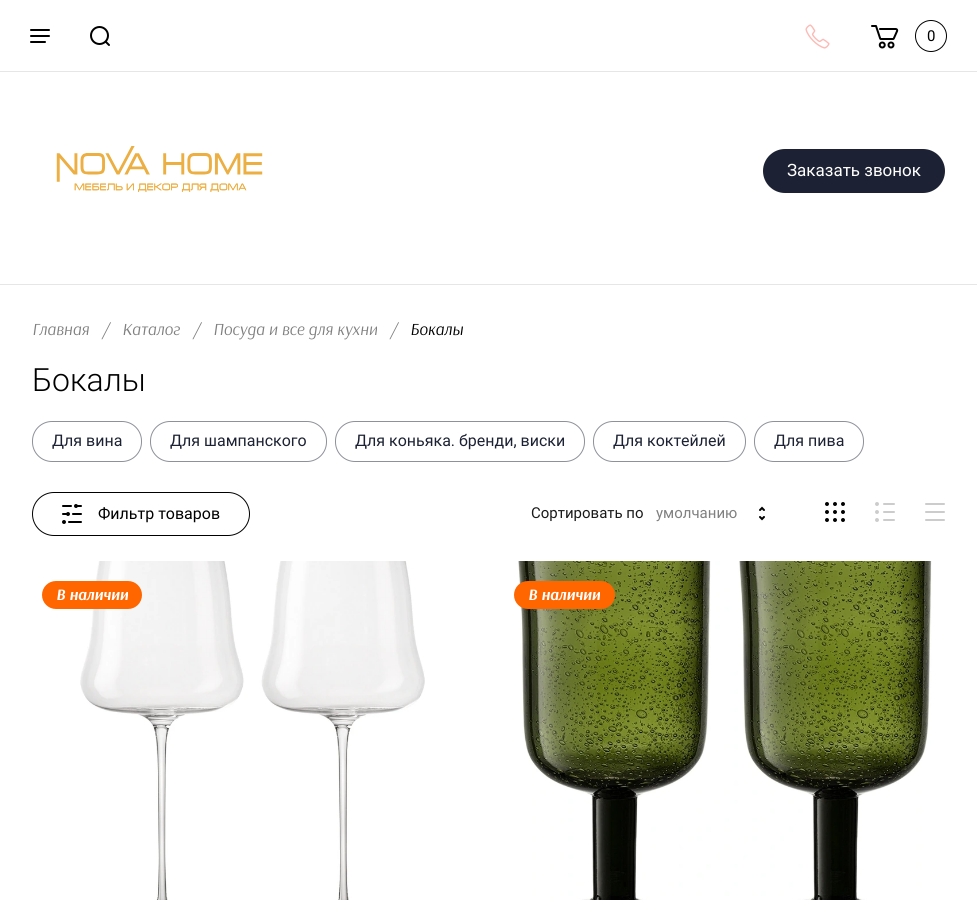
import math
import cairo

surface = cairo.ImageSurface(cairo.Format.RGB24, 977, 907)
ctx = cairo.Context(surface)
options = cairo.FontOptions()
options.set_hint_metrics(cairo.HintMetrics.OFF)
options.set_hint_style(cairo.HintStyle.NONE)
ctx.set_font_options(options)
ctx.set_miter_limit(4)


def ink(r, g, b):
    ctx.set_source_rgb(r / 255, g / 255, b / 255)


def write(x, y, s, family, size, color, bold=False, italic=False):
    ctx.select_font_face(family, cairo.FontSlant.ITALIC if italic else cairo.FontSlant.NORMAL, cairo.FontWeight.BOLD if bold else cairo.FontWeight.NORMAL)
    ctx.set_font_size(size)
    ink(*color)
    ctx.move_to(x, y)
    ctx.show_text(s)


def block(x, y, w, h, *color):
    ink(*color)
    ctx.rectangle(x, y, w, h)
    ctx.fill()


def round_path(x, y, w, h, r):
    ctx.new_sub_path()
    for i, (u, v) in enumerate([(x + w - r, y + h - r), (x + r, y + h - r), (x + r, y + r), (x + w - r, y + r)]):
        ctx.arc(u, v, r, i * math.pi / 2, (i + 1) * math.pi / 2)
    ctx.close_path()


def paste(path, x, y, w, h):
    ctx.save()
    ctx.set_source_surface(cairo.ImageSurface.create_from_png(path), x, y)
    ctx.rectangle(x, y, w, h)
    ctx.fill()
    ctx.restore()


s1 = dict(family="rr", size=15, color=(0, 0, 0))
s2 = dict(family="rr", size=17, color=(255, 255, 255))
s3 = dict(family="Arsenal", size=17, color=(128, 128, 128), italic=True)
s4 = dict(family="Arsenal", size=17, color=(0, 0, 0), italic=True)
s5 = dict(family="Roboto Light", size=32, color=(0, 0, 0))
s6 = dict(family="rr", size=16, color=(28, 34, 51))
s7 = dict(family="rr", size=16, color=(0, 0, 0))
s8 = dict(family="rr", size=15, color=(26, 26, 26))
s9 = dict(family="rr", size=15, color=(128, 128, 128))
s10 = dict(family="Arsenal", size=16, color=(255, 255, 255), bold=True, italic=True)

ink(255, 255, 255)
ctx.paint()
block(0, 284, 977, 1, 230, 230, 230)
block(0, 71, 977, 1, 230, 230, 230)
paste("pic1.png", 30, 29, 20, 14)
paste("pic2.png", 90, 26, 20, 20)
paste("pic3.png", 805, 24, 25, 25)
paste("pic4.png", 871, 25, 28, 24)
ctx.arc(931, 36, 15.5, 0, 2 * math.pi)
ink(0, 0, 0)
ctx.set_line_width(1)
ctx.stroke()
write(927, 41, "0", **s1)
paste("pic5.png", 56, 146, 207, 46)
ink(28, 34, 51)
round_path(763, 149, 182, 44, 22)
ctx.fill()
write(787, 176, "Заказать звонок", **s2)
write(32, 335, "Главная", **s3)
write(102, 335, "/", **s3)
write(122, 335, "Каталог", **s3)
write(193, 335, "/", **s3)
write(213, 335, "Посуда и все для кухни", **s3)
write(390, 335, "/", **s3)
write(410, 335, "Бокалы", **s4)
write(32, 391, "Бокалы", **s5)
round_path(32.5, 421.5, 109, 40, 19.5)
ink(142, 145, 153)
ctx.stroke()
write(52, 446, "Для вина", **s6)
round_path(150.5, 421.5, 176, 40, 19.5)
ink(142, 145, 153)
ctx.stroke()
write(170, 446, "Для шампанского", **s6)
round_path(335.5, 421.5, 249, 40, 19.5)
ink(142, 145, 153)
ctx.stroke()
write(355, 446, "Для коньяка. бренди, виски", **s6)
round_path(593.5, 421.5, 152, 40, 19.5)
ink(142, 145, 153)
ctx.stroke()
write(613, 446, "Для коктейлей", **s6)
round_path(754.5, 421.5, 109, 40, 19.5)
ink(142, 145, 153)
ctx.stroke()
write(774, 446, "Для пива", **s6)
round_path(32.5, 492.5, 217, 43, 21.5)
ink(0, 0, 0)
ctx.stroke()
paste("pic6.png", 62, 504, 20, 20)
write(98, 519, "Фильтр товаров", **s7)
write(531, 518, "Сортировать по", **s8)
write(656, 518, "умолчанию", **s9)
paste("pic7.png", 759, 506, 6, 15)
paste("pic8.png", 825, 502, 20, 20)
paste("pic9.png", 875, 502, 20, 20)
paste("pic10.png", 925, 503, 20, 18)
paste("pic11.png", 80, 561, 345, 339)
ink(255, 102, 0)
round_path(42, 581, 100, 28, 14)
ctx.fill()
write(56, 600, "В наличии", **s10)
paste("pic12.png", 518, 561, 414, 339)
ink(255, 102, 0)
round_path(514, 581, 101, 28, 14)
ctx.fill()
write(528, 600, "В наличии", **s10)
surface.write_to_png("screenshot.png")
